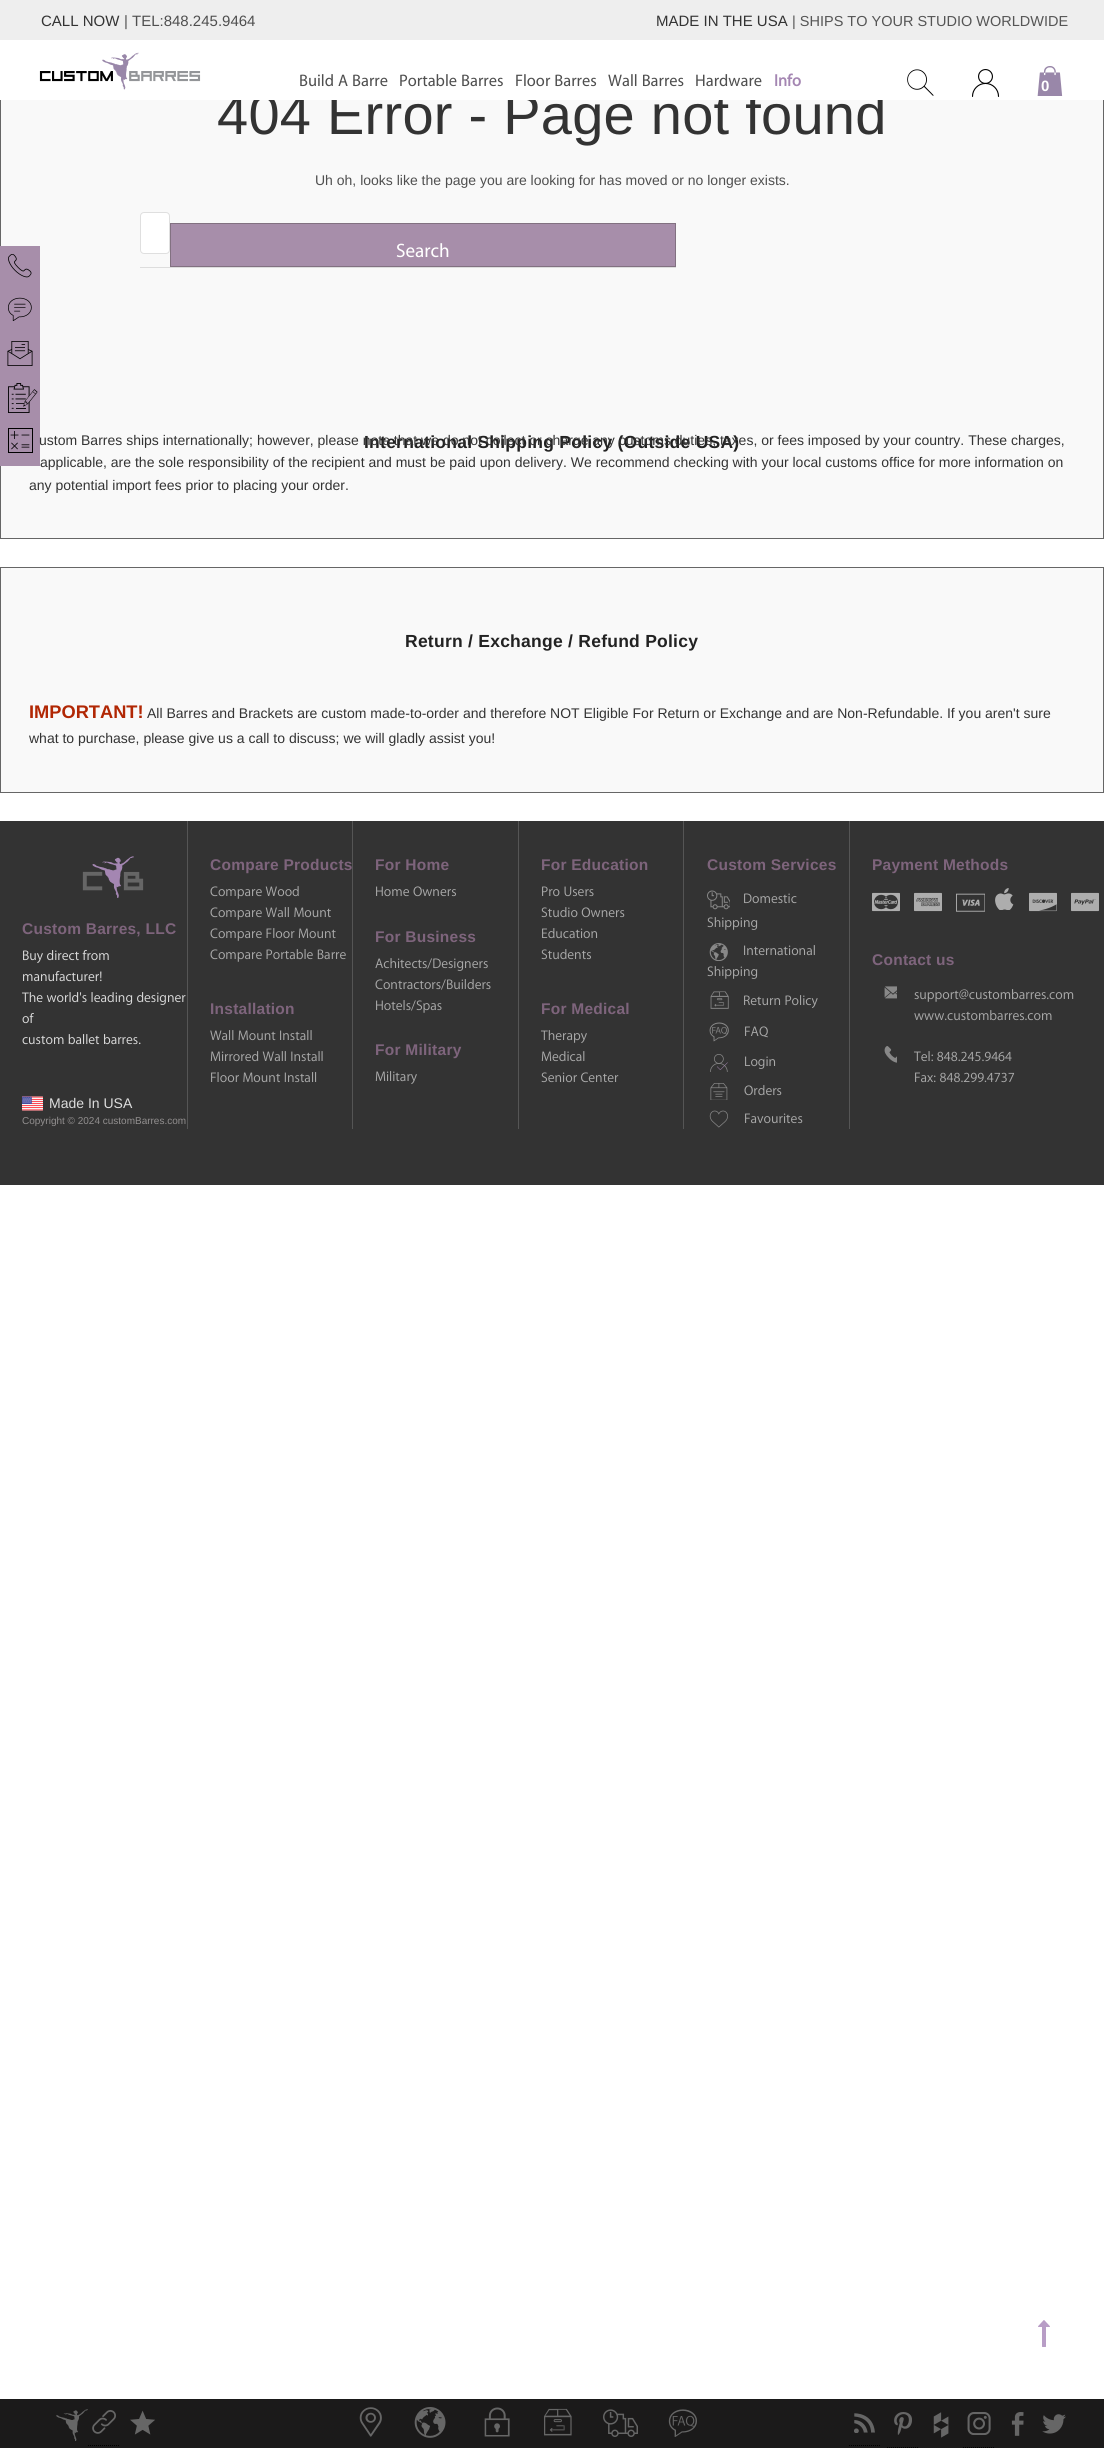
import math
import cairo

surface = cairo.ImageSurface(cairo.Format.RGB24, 1104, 2448)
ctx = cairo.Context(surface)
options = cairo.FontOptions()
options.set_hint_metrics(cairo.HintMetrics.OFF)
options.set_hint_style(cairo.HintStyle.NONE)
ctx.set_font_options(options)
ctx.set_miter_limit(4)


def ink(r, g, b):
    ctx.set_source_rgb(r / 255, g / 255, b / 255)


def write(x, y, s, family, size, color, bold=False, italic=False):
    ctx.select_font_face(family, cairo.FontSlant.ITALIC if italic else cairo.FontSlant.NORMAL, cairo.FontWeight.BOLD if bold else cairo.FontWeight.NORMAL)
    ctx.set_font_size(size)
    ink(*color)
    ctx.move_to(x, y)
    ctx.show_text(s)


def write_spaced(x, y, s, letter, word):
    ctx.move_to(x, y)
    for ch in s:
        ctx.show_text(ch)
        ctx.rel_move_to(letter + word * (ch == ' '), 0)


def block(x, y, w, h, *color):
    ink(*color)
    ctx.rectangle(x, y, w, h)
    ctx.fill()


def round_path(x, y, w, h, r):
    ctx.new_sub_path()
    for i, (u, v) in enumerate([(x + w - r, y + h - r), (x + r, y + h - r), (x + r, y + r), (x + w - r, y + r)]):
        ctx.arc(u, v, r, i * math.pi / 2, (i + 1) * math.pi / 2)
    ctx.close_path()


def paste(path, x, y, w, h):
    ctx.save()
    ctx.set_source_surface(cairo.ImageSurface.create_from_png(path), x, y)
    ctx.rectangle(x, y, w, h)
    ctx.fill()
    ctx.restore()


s1 = dict(family="Liberation Sans", size=15, color=(51, 51, 51))
s2 = dict(family="Liberation Sans", size=15, color=(85, 85, 85))
s3 = dict(family="Liberation Sans", size=15, color=(79, 79, 79))
s4 = dict(family="Liberation Sans", size=14.5, color=(85, 85, 85))
s5 = dict(family="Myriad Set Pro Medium", size=16.75, color=(79, 79, 79))
s6 = dict(family="Myriad Set Pro", size=16.75, color=(164, 134, 178), bold=True)
s7 = dict(family="Liberation Sans", size=15, color=(255, 255, 255), bold=True)
s8 = dict(family="Liberation Sans", size=14, color=(79, 79, 79))
s9 = dict(family="Myriad Set Pro Medium", size=19.5, color=(255, 255, 255))
s10 = dict(family="Liberation Sans", size=14, color=(51, 51, 51))
s11 = dict(family="Liberation Sans", size=18.25, color=(177, 39, 4), bold=True)
s12 = dict(family="Myriad Set Pro", size=14, color=(221, 221, 221))
s13 = dict(family="Liberation Sans", size=14, color=(221, 221, 221))
s14 = dict(family="Liberation Sans", size=10, color=(146, 143, 143))
s15 = dict(family="Myriad Set Pro", size=14, color=(170, 170, 170))

ink(255, 255, 255)
ctx.paint()
block(1, 100, 1102, 438, 249, 249, 249)
ctx.rectangle(0.5, 28.5, 1103, 510)
ink(102, 102, 102)
ctx.set_line_width(1)
ctx.stroke()
block(0, 0, 1104, 40, 238, 238, 238)
write(41, 26, "CALL NOW", **s1)
write(124, 26, "|", **s2)
write(132, 26, "TEL:848.245.9464", **s3)
write(656, 26, "MADE IN THE USA", **s1)
write(792, 26, "| SHIPS TO YOUR STUDIO WORLDWIDE", **s4)
ctx.set_font_size(56)
ink(51, 51, 51)
write_spaced(217, 134, "404 Error - Page not found", 0.25, 0)
block(0, 40, 1104, 60, 255, 255, 255)
paste("pic1.png", 39, 52, 162, 38)
write(299, 86, "Build A Barre", **s5)
write(399, 86, "Portable Barres", **s5)
write(515, 86, "Floor Barres", **s5)
write(608, 86, "Wall Barres", **s5)
write(695, 86, "Hardware", **s5)
write(774, 86, "Info", **s6)
paste("pic2.png", 907, 69, 27, 27)
paste("pic3.png", 972, 69, 28, 28)
paste("pic4.png", 1037, 66, 26, 30)
write(1041, 91, "0", **s7)
block(0, 246, 40, 133, 167, 142, 170)
paste("pic5.png", 8, 254, 24, 24)
paste("pic6.png", 8, 297, 24, 24)
paste("pic7.png", 7, 341, 26, 25)
block(0, 379, 40, 87, 167, 142, 170)
paste("pic8.png", 8, 383, 30, 30)
paste("pic9.png", 8, 428, 25, 25)
write(315, 185, "Uh oh, looks like the page you are looking for has moved or no longer exists.", **s8)
block(140, 267, 536, 1, 221, 221, 221)
ink(255, 255, 255)
round_path(140.5, 212.5, 29, 41, 3.5)
ctx.fill_preserve()
ink(223, 223, 223)
ctx.stroke()
ink(167, 142, 170)
ctx.rectangle(170.5, 223.5, 505, 43)
ctx.fill_preserve()
ink(130, 113, 129)
ctx.stroke()
write(396, 257, "Search", **s9)
ctx.select_font_face("Liberation Sans", cairo.FontSlant.NORMAL, cairo.FontWeight.BOLD)
ctx.set_font_size(17.5)
ink(34, 34, 34)
write_spaced(364, 448, "International Shipping Policy (Outside USA)", 0.25, 0)
write(39, 445, "ustom Barres ships internationally; however, please note that we do not collect or charge any customs duties, taxes, or fees imposed by your country. These charges,", **s10)
write(40, 467, "applicable, are the sole responsibility of the recipient and must be paid upon delivery. We recommend checking with your local customs office for more information on", **s10)
write(29, 490, "any potential import fees prior to placing your order.", **s10)
ink(249, 249, 249)
ctx.rectangle(0.5, 567.5, 1103, 225)
ctx.fill_preserve()
ink(102, 102, 102)
ctx.stroke()
ctx.select_font_face("Liberation Sans", cairo.FontSlant.NORMAL, cairo.FontWeight.BOLD)
ctx.set_font_size(17.5)
ink(34, 34, 34)
write_spaced(405, 647, "Return / Exchange / Refund Policy", 0.25, 0)
write(29, 718, "IMPORTANT!", **s11)
write(147, 718, "All Barres and Brackets are custom made-to-order and therefore NOT Eligible For Return or Exchange and are Non-Refundable. If you aren't sure", **s10)
write(29, 743, "what to purchase, please give us a call to discuss; we will gladly assist you!", **s10)
block(0, 821, 1104, 364, 51, 51, 51)
block(187, 821, 1, 308, 85, 85, 85)
paste("pic10.png", 82, 856, 62, 42)
ctx.select_font_face("Liberation Sans", cairo.FontSlant.NORMAL, cairo.FontWeight.BOLD)
ctx.set_font_size(15.5)
ink(126, 100, 124)
write_spaced(22, 934, "Custom Barres, LLC", 0.25, 0)
write(22, 960, "Buy direct from", **s12)
write(22, 981, "manufacturer!", **s12)
write(22, 1002, "The world's leading designer", **s12)
write(22, 1023, "of", **s12)
write(22, 1044, "custom ballet barres.", **s12)
paste("pic11.png", 22, 1096, 21, 15)
write(49, 1108, "Made In USA", **s13)
write(22, 1124, "Copyright © 2024 customBarres.com", **s14)
block(352, 821, 1, 308, 85, 85, 85)
ctx.select_font_face("Liberation Sans", cairo.FontSlant.NORMAL, cairo.FontWeight.BOLD)
ctx.set_font_size(15.5)
ink(126, 100, 124)
write_spaced(210, 870, "Compare Products", 0.25, 0)
write(210, 896, "Compare Wood", **s15)
write(210, 917, "Compare Wall Mount", **s15)
write(210, 938, "Compare Floor Mount", **s15)
write(210, 959, "Compare Portable Barre", **s15)
ctx.select_font_face("Liberation Sans", cairo.FontSlant.NORMAL, cairo.FontWeight.BOLD)
ctx.set_font_size(15.5)
ink(126, 100, 124)
write_spaced(210, 1014, "Installation", 0.25, 0)
write(210, 1040, "Wall Mount Install", **s15)
write(210, 1061, "Mirrored Wall Install", **s15)
write(210, 1082, "Floor Mount Install", **s15)
block(518, 821, 1, 308, 85, 85, 85)
ctx.select_font_face("Liberation Sans", cairo.FontSlant.NORMAL, cairo.FontWeight.BOLD)
ctx.set_font_size(15.5)
ink(126, 100, 124)
write_spaced(375, 870, "For Home", 0.25, 0)
write(375, 896, "Home Owners", **s15)
ctx.select_font_face("Liberation Sans", cairo.FontSlant.NORMAL, cairo.FontWeight.BOLD)
ctx.set_font_size(15.5)
ink(126, 100, 124)
write_spaced(375, 942, "For Business", 0.25, 0)
write(375, 968, "Achitects/Designers", **s15)
write(375, 989, "Contractors/Builders", **s15)
write(375, 1010, "Hotels/Spas", **s15)
ctx.select_font_face("Liberation Sans", cairo.FontSlant.NORMAL, cairo.FontWeight.BOLD)
ctx.set_font_size(15.5)
ink(126, 100, 124)
write_spaced(375, 1055, "For Military", 0.25, 0)
write(375, 1081, "Military", **s15)
block(683, 821, 1, 308, 85, 85, 85)
ctx.select_font_face("Liberation Sans", cairo.FontSlant.NORMAL, cairo.FontWeight.BOLD)
ctx.set_font_size(15.5)
ink(126, 100, 124)
write_spaced(541, 870, "For Education", 0.25, 0)
write(541, 896, "Pro Users", **s15)
write(541, 917, "Studio Owners", **s15)
write(541, 938, "Education", **s15)
write(541, 959, "Students", **s15)
ctx.select_font_face("Liberation Sans", cairo.FontSlant.NORMAL, cairo.FontWeight.BOLD)
ctx.set_font_size(15.5)
ink(126, 100, 124)
write_spaced(541, 1014, "For Medical", 0.25, 0)
write(541, 1040, "Therapy", **s15)
write(541, 1061, "Medical", **s15)
write(541, 1082, "Senior Center", **s15)
block(849, 821, 1, 308, 85, 85, 85)
ctx.select_font_face("Liberation Sans", cairo.FontSlant.NORMAL, cairo.FontWeight.BOLD)
ctx.set_font_size(15.5)
ink(126, 100, 124)
write_spaced(707, 870, "Custom Services", 0.25, 0)
paste("pic12.png", 707, 890, 23, 20)
write(743, 903, "Domestic", **s15)
write(707, 927, "Shipping", **s15)
paste("pic13.png", 709, 943, 19, 18)
write(743, 955, "International", **s15)
write(707, 976, "Shipping", **s15)
paste("pic14.png", 710, 991, 19, 18)
write(743, 1005, "Return Policy", **s15)
paste("pic15.png", 709, 1022, 20, 20)
write(744, 1036, "FAQ", **s15)
paste("pic16.png", 710, 1054, 18, 18)
write(744, 1066, "Login", **s15)
paste("pic17.png", 710, 1083, 18, 17)
write(744, 1095, "Orders", **s15)
paste("pic18.png", 709, 1110, 19, 18)
write(744, 1123, "Favourites", **s15)
ctx.select_font_face("Liberation Sans", cairo.FontSlant.NORMAL, cairo.FontWeight.BOLD)
ctx.set_font_size(15.5)
ink(126, 100, 124)
write_spaced(872, 870, "Payment Methods", 0.25, 0)
paste("pic19.png", 872, 892, 28, 20)
paste("pic20.png", 914, 892, 28, 20)
paste("pic21.png", 956, 893, 29, 19)
paste("pic22.png", 995, 888, 19, 22)
paste("pic23.png", 1029, 892, 28, 20)
paste("pic24.png", 1071, 892, 28, 20)
write_spaced(872, 965, "Contact us", 0.25, 0)
paste("pic25.png", 884, 986, 13, 13)
write(914, 999, "support@custombarres.com", **s15)
write(914, 1020, "www.custombarres.com", **s15)
paste("pic26.png", 884, 1046, 13, 17)
write(914, 1061, "Tel: 848.245.9464", **s15)
write(914, 1082, "Fax: 848.299.4737", **s15)
block(0, 2399, 1104, 49, 27, 26, 26)
paste("pic27.png", 56, 2409, 32, 32)
ctx.new_path()
ctx.move_to(88, 2445.5)
ctx.line_to(120, 2445.5)
ink(0, 0, 0)
ctx.set_dash([1, 1])
ctx.stroke()
paste("pic28.png", 92, 2410, 24, 24)
paste("pic29.png", 130, 2410, 25, 25)
paste("pic30.png", 359, 2407, 23, 30)
paste("pic31.png", 414, 2407, 32, 31)
paste("pic32.png", 484, 2407, 26, 30)
paste("pic33.png", 544, 2408, 28, 28)
paste("pic34.png", 603, 2409, 35, 28)
paste("pic35.png", 668, 2409, 29, 28)
ctx.new_path()
ctx.move_to(849, 2445.5)
ctx.line_to(881, 2445.5)
ctx.stroke()
paste("pic36.png", 854, 2413, 21, 20)
ctx.new_path()
ctx.move_to(887, 2447.5)
ctx.line_to(919, 2447.5)
ctx.stroke()
paste("pic37.png", 894, 2412, 18, 23)
paste("pic38.png", 933, 2412, 16, 26)
ctx.new_path()
ctx.move_to(963, 2447.5)
ctx.line_to(995, 2447.5)
ctx.stroke()
paste("pic39.png", 967, 2412, 24, 23)
paste("pic40.png", 1011, 2412, 13, 24)
paste("pic41.png", 1042, 2414, 24, 20)
paste("pic42.png", 1038, 2320, 12, 27)
surface.write_to_png("screenshot.png")
